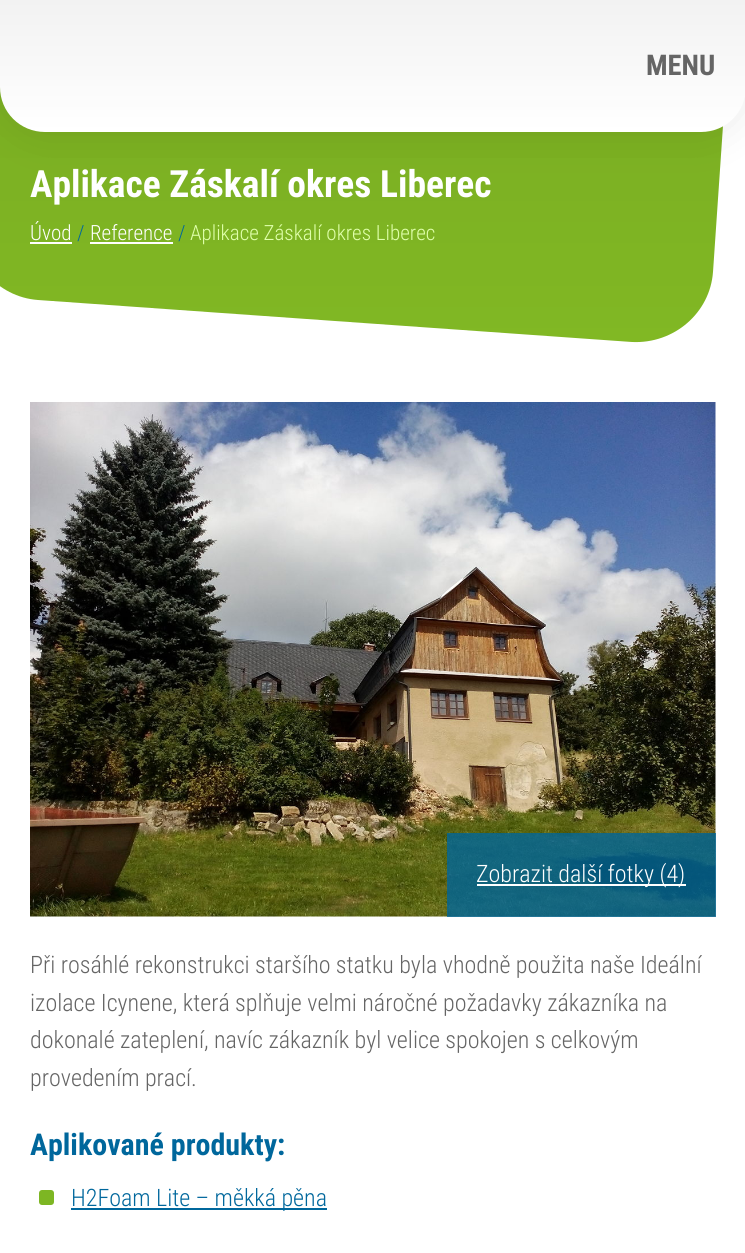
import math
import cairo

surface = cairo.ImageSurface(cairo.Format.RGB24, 745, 1253)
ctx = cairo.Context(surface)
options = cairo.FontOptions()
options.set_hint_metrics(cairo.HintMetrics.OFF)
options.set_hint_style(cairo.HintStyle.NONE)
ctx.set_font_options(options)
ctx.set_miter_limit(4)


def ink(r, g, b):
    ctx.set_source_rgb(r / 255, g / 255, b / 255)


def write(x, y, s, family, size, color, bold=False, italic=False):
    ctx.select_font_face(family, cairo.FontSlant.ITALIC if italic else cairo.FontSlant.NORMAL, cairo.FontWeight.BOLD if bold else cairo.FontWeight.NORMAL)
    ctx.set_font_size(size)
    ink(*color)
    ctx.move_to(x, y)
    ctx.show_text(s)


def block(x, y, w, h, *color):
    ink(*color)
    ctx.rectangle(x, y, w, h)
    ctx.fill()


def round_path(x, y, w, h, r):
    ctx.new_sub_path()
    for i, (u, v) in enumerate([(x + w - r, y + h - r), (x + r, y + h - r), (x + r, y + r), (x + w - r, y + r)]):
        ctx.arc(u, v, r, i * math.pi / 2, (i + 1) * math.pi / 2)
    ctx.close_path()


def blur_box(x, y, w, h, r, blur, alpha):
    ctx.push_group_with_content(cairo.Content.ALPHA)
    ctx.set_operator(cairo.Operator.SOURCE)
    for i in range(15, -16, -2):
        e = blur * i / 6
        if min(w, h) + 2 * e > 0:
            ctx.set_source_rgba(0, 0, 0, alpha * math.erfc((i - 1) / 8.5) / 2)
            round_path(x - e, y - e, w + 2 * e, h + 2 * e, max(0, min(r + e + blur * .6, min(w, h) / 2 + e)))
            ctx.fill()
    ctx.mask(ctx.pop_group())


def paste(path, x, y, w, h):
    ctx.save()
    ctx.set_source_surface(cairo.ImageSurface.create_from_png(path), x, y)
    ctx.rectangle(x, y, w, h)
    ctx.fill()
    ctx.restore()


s1 = dict(family="Roboto Condensed", size=28.5, color=(101, 101, 101), bold=True)
s2 = dict(family="Roboto Condensed", size=37.5, color=(255, 255, 255), bold=True)
s3 = dict(family="Roboto Condensed Light", size=21, color=(255, 255, 255))
s4 = dict(family="Roboto Condensed Light", size=21, color=(0, 103, 156))
s5 = dict(family="Roboto Condensed Light", size=21, color=(223, 255, 170))
s6 = dict(family="Roboto Condensed Light", size=24, color=(255, 255, 255))
s7 = dict(family="Roboto Condensed Light", size=24, color=(101, 101, 101))
s8 = dict(family="Roboto Condensed", size=30, color=(0, 103, 156), bold=True)
s9 = dict(family="Roboto Condensed Light", size=24, color=(0, 103, 156))

ink(255, 255, 255)
ctx.paint()
ink(130, 185, 36)
ctx.new_path()
ctx.move_to(68, -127)
ctx.line_to(662, -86)
ctx.curve_to(704, -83, 735, -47, 732, -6)
ctx.line_to(713, 272)
ctx.curve_to(710, 313, 674, 344, 632, 342)
ctx.line_to(38, 300)
ctx.curve_to(-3, 297, -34, 261, -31, 220)
ctx.line_to(-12, -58)
ctx.curve_to(-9, -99, 27, -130, 68, -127)
ctx.close_path()
ctx.fill()
gradient = cairo.LinearGradient(352, -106, 352, 381)
gradient.add_color_stop_rgba(0, 0, 0, 0, 0.09)
gradient.add_color_stop_rgba(1, 0, 0, 0, 0)
ctx.set_source(gradient)
ctx.new_path()
ctx.move_to(-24, 118)
ctx.line_to(-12, -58)
ctx.curve_to(-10, -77, -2, -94, 10, -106)
ctx.line_to(373, -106)
ctx.line_to(662, -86)
ctx.curve_to(694, -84, 720, -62, 729, -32)
ctx.line_to(729, 36)
ctx.line_to(713, 272)
ctx.curve_to(710, 313, 674, 344, 632, 342)
ctx.line_to(38, 300)
ctx.curve_to(11, 298, -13, 281, -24, 258)
ctx.close_path()
ctx.fill()
ink(0, 0, 0)
blur_box(0, 0, 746, 132, 45, 22.5, 0.1)
gradient = cairo.LinearGradient(373, 0, 373, 132)
gradient.add_color_stop_rgba(0, 0.949, 0.949, 0.949, 1)
gradient.add_color_stop_rgba(1, 1, 1, 1, 1)
ctx.set_source(gradient)
ctx.new_path()
ctx.move_to(0, 0)
ctx.line_to(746, 0)
ctx.line_to(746, 87)
ctx.curve_to(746, 112, 726, 132, 701, 132)
ctx.line_to(45, 132)
ctx.curve_to(20, 132, 0, 112, 0, 87)
ctx.close_path()
ctx.fill()
write(646, 75, "MENU", **s1)
write(30, 197, "Aplikace Záskalí okres Liberec", **s2)
write(30, 240, "Úvod", **s3)
block(30, 242, 42, 2, 255, 255, 255)
write(77, 240, "/", **s4)
write(90, 240, "Reference", **s3)
block(90, 242, 83, 2, 255, 255, 255)
write(178, 240, "/", **s4)
write(190, 240, "Aplikace Záskalí okres Liberec", **s5)
paste("pic1.png", 30, 402, 686, 515)
ctx.set_source_rgba(0, 0.396, 0.596, 0.8)
ctx.rectangle(447, 833, 269, 84)
ctx.fill()
block(477, 884, 209, 2, 255, 255, 255)
write(476, 882, "Zobrazit další fotky (4)", **s6)
write(30, 973, "Při rosáhlé rekonstrukci staršího statku byla vhodně použita naše Ideální", **s7)
write(30, 1011, "izolace Icynene, která splňuje velmi náročné požadavky zákazníka na", **s7)
write(30, 1048, "dokonalé zateplení, navíc zákazník byl velice spokojen s celkovým", **s7)
write(30, 1086, "provedením prací.", **s7)
write(30, 1155, "Aplikované produkty:", **s8)
ink(125, 182, 35)
round_path(39, 1190, 15, 15, 3)
ctx.fill()
block(71, 1208, 256, 2, 0, 103, 156)
write(71, 1206, "H2Foam Lite – měkká pěna", **s9)
surface.write_to_png("screenshot.png")
